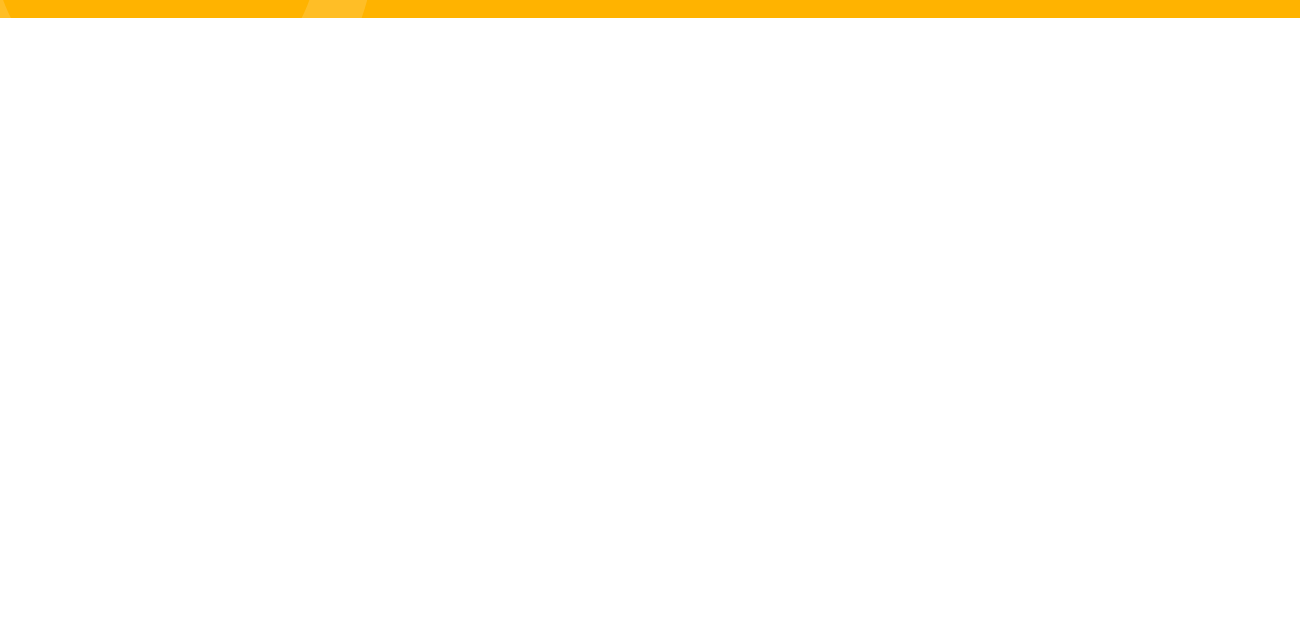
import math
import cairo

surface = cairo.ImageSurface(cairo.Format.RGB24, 1300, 630)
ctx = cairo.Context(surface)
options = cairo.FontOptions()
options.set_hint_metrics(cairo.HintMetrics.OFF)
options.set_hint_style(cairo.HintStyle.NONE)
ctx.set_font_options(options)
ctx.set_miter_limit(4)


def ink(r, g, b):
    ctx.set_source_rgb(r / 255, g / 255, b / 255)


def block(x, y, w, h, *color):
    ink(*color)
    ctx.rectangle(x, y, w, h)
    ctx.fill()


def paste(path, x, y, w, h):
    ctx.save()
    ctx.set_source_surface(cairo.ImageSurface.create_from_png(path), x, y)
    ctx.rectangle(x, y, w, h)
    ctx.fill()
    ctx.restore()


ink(255, 255, 255)
ctx.paint()
block(0, 0, 1300, 18, 255, 179, 0)
paste("pic1.png", 0, 0, 367, 18)
surface.write_to_png("screenshot.png")
